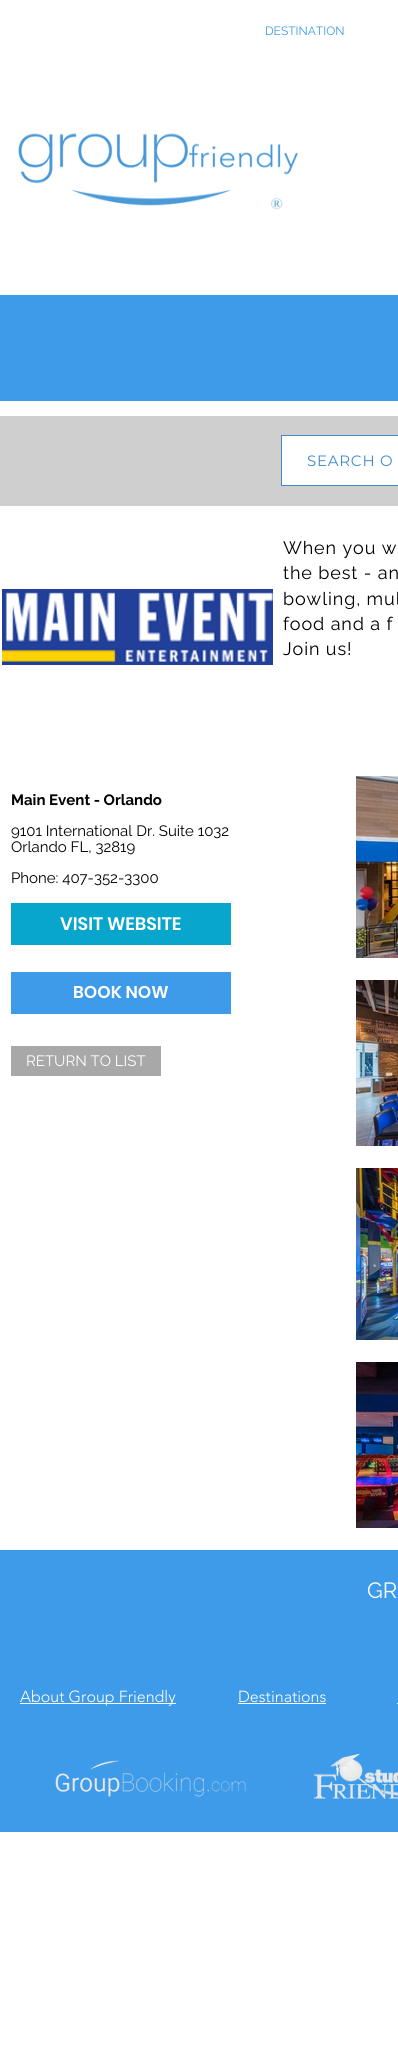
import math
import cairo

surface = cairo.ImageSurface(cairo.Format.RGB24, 398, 2053)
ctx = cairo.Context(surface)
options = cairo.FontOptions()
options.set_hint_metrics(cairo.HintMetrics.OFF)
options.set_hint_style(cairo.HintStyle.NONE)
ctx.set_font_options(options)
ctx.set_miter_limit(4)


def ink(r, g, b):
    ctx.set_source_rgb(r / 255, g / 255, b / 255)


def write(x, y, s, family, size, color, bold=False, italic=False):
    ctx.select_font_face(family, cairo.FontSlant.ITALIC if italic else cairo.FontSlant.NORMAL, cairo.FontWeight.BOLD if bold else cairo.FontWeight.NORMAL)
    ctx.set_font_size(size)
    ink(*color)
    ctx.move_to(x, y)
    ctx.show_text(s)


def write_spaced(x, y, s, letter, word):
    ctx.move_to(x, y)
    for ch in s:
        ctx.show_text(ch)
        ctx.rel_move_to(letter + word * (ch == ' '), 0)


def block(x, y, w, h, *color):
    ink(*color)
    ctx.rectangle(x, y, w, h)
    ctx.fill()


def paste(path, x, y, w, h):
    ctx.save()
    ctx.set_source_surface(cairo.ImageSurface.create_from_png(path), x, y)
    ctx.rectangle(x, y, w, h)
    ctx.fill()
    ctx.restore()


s1 = dict(family="Raleway", size=12, color=(61, 155, 233))
s2 = dict(family="Raleway", size=15, color=(0, 0, 0), bold=True)
s3 = dict(family="Raleway", size=15, color=(0, 0, 0))
s4 = dict(family="Poppins SemiBold", size=18, color=(255, 255, 255))
s5 = dict(family="Poppins SemiBold", size=17, color=(255, 255, 255))
s6 = dict(family="Raleway", size=15, color=(255, 255, 255))
s7 = dict(family="Raleway", size=22, color=(255, 255, 255))
s8 = dict(family="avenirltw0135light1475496 Light", size=16, color=(255, 255, 255))

ink(255, 255, 255)
ctx.paint()
write(265, 35, "DESTINATION", **s1)
paste("pic1.png", 18, 133, 280, 77)
block(0, 295, 398, 106, 61, 155, 233)
block(0, 416, 398, 90, 207, 207, 207)
ink(255, 255, 255)
ctx.rectangle(281.5, 435.5, 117, 50)
ctx.fill_preserve()
ink(65, 139, 204)
ctx.set_line_width(1)
ctx.stroke()
ctx.select_font_face("Montserrat")
ctx.set_font_size(15)
write_spaced(307, 466, "SEARCH O", 0.75, 0)
paste("pic2.png", 2, 589, 271, 76)
ctx.select_font_face("Raleway")
ctx.set_font_size(18)
ink(0, 0, 0)
write_spaced(283, 554, "When you w", 0.9, 0)
write_spaced(283, 579, "the best - an", 0.9, 0)
write_spaced(283, 605, "bowling, mul", 0.9, 0)
write_spaced(283, 630, "food and a f", 0.9, 0)
write_spaced(283, 655, "Join us!", 0.9, 0)
write(11, 805, "Main Event - Orlando", **s2)
write(11, 836, "9101 International Dr. Suite 1032", **s3)
write(11, 852, "Orlando FL, 32819", **s3)
write(11, 883, "Phone: 407-352-3300", **s3)
paste("pic3.png", 356, 776, 42, 182)
paste("pic4.png", 356, 980, 42, 166)
paste("pic5.png", 356, 1168, 42, 172)
paste("pic6.png", 356, 1362, 42, 166)
block(11, 903, 220, 42, 8, 165, 204)
write(60, 930, "VISIT WEBSITE", **s4)
block(11, 972, 220, 42, 61, 155, 233)
write(73, 998, "BOOK NOW", **s5)
block(11, 1046, 150, 30, 168, 168, 168)
write(26, 1066, "RETURN TO LIST", **s6)
block(0, 1550, 398, 282, 61, 155, 233)
write(367, 1598, "GR", **s7)
block(20, 1703, 156, 1, 255, 255, 255)
write(20, 1702, "About Group Friendly", **s8)
write(238, 1702, "Destinations", **s8)
block(238, 1703, 88, 1, 255, 255, 255)
block(397, 1703, 1, 1, 255, 255, 255)
paste("pic7.png", 55, 1760, 191, 37)
paste("pic8.png", 314, 1754, 84, 45)
surface.write_to_png("screenshot.png")
